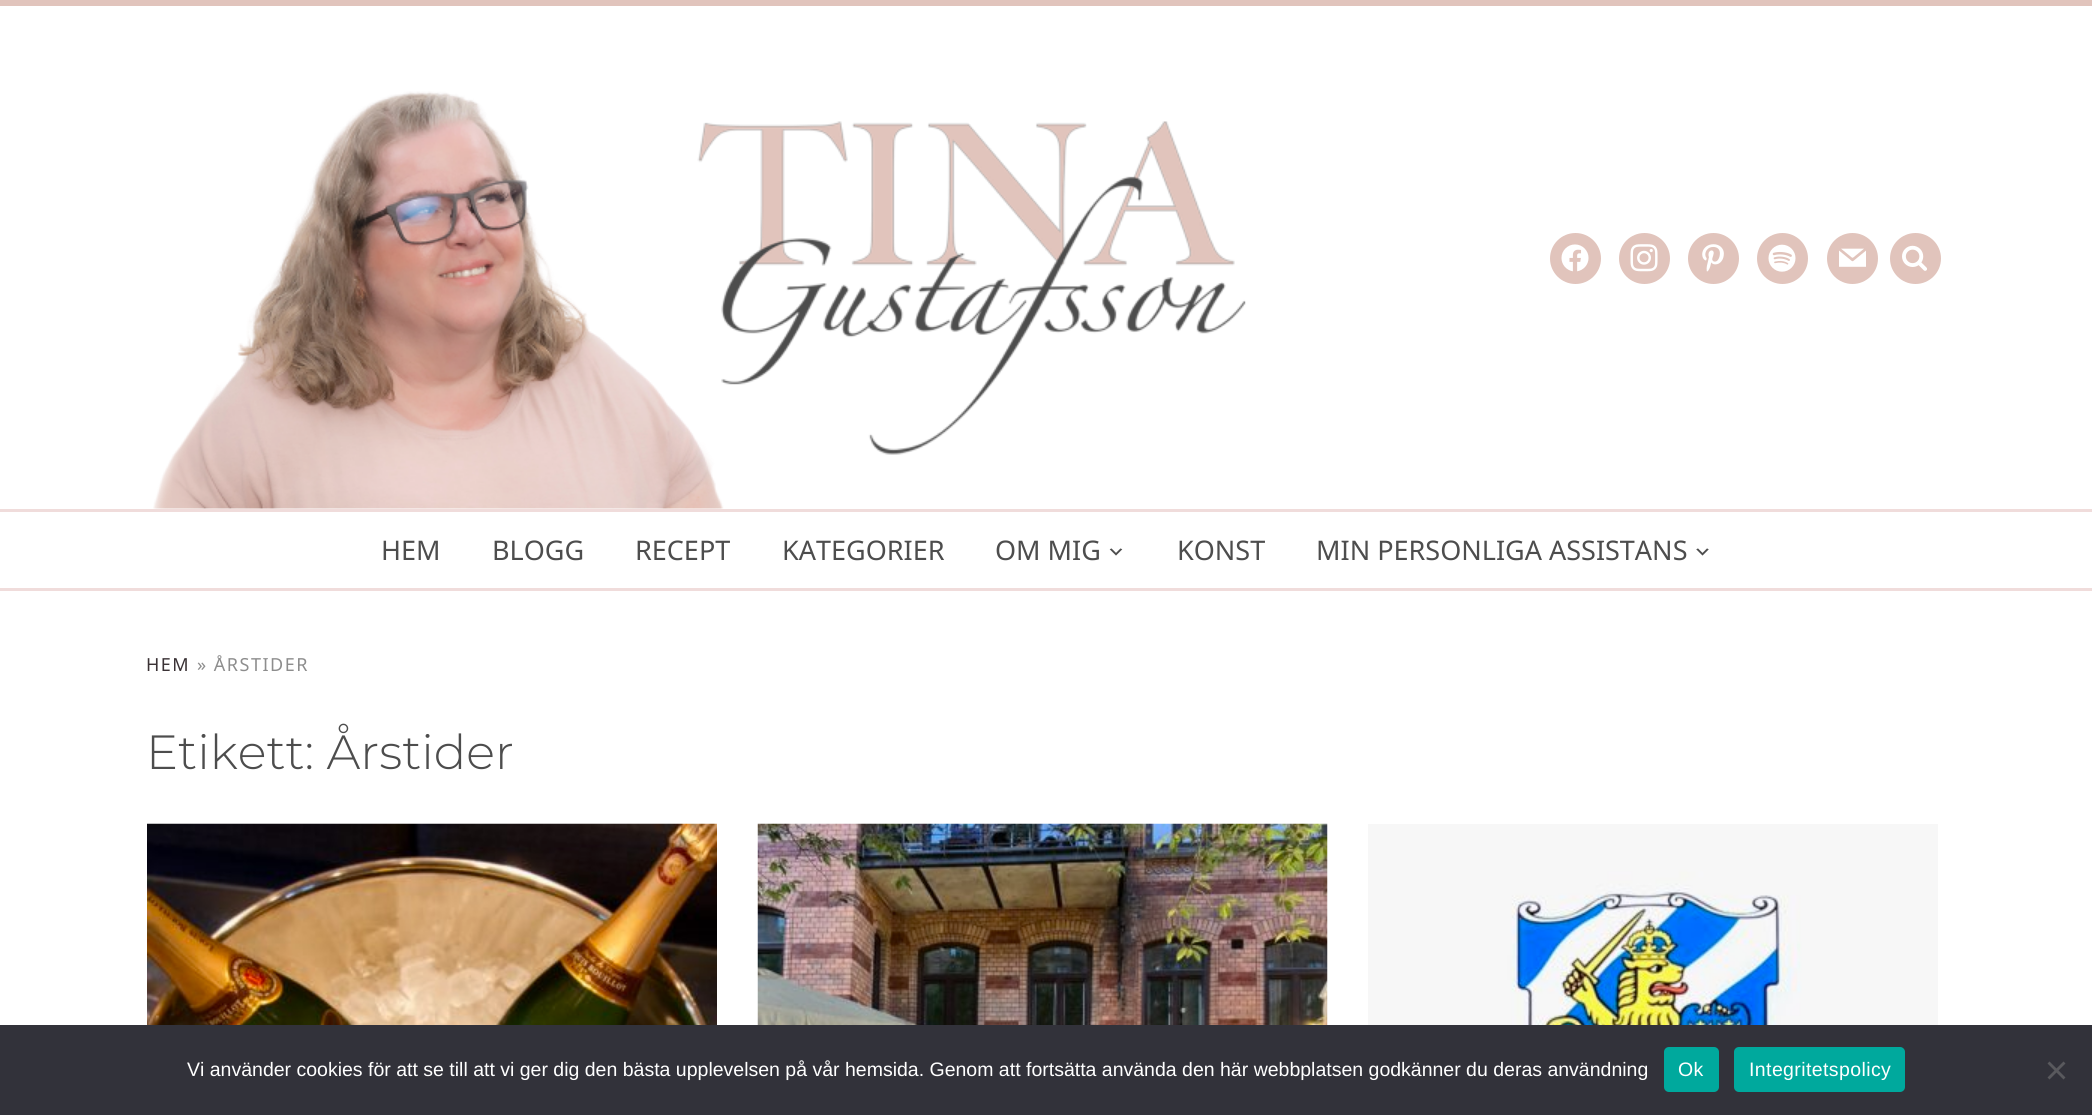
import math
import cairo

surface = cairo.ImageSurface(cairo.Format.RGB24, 2092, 1115)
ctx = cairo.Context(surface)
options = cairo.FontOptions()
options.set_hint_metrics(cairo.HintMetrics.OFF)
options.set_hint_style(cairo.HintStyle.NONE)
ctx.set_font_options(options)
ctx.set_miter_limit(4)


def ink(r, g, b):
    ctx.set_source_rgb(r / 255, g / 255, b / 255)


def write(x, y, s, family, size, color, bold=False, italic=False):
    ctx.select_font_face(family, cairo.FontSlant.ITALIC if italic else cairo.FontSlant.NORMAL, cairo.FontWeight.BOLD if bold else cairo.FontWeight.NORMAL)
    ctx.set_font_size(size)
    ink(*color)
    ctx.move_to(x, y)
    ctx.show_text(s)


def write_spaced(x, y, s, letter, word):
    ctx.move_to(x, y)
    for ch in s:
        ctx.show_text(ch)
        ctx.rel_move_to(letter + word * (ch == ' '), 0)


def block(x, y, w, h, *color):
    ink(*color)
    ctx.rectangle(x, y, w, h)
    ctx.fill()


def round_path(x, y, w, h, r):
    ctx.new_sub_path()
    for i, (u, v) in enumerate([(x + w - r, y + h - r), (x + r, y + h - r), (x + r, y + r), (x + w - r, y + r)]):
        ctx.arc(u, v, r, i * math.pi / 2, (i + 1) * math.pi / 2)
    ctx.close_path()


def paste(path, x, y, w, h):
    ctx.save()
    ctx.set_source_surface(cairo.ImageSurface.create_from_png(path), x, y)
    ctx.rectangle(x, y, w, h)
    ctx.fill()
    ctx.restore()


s1 = dict(family="Noto Sans", size=27, color=(77, 77, 77))
s2 = dict(family="Montserrat Light", size=48, color=(77, 77, 77))
s3 = dict(family="Liberation Sans", size=19.5, color=(255, 255, 255))

ink(255, 255, 255)
ctx.paint()
block(0, 0, 2092, 6, 225, 196, 188)
paste("pic1.png", 153, 91, 1093, 418)
ctx.arc(1575.5, 258.5, 25.5, 0, 2 * math.pi)
ctx.fill()
paste("pic2.png", 1561, 244, 28, 28)
ctx.arc(1644.5, 258.5, 25.5, 0, 2 * math.pi)
ctx.fill()
paste("pic3.png", 1630, 244, 28, 28)
ctx.arc(1713.5, 258.5, 25.5, 0, 2 * math.pi)
ctx.fill()
paste("pic4.png", 1702, 244, 22, 28)
ctx.arc(1782.5, 258.5, 25.5, 0, 2 * math.pi)
ctx.fill()
paste("pic5.png", 1768, 244, 28, 28)
ctx.arc(1852.5, 258.5, 25.5, 0, 2 * math.pi)
ctx.fill()
paste("pic6.png", 1839, 248, 27, 19)
ctx.arc(1915.5, 258.5, 25.5, 0, 2 * math.pi)
ctx.fill()
paste("pic7.png", 1902, 245, 25, 26)
block(0, 509, 2092, 3, 240, 220, 219)
block(0, 588, 2092, 3, 240, 220, 219)
write(381, 560, "HEM", **s1)
write(492, 560, "BLOGG", **s1)
write(635, 560, "RECEPT", **s1)
write(782, 560, "KATEGORIER", **s1)
write(995, 560, "OM MIG", **s1)
paste("pic8.png", 1109, 548, 14, 8)
write(1177, 560, "KONST", **s1)
write(1316, 560, "MIN PERSONLIGA ASSISTANS", **s1)
paste("pic9.png", 1696, 548, 13, 8)
ctx.set_font_size(18)
ink(58, 50, 53)
write_spaced(146, 671, "HEM", 1.5, 0)
ink(141, 141, 141)
write_spaced(197, 671, "» ÅRSTIDER", 1.5, 0)
write(146, 769, "Etikett: Årstider", **s2)
paste("pic10.png", 147, 823, 570, 202)
paste("pic11.png", 757, 823, 571, 202)
paste("pic12.png", 1368, 824, 570, 201)
block(0, 1025, 2092, 90, 50, 50, 58)
write(187, 1076, "Vi använder cookies för att se till att vi ger dig den bästa upplevelsen på vår hemsida. Genom att fortsätta använda den här webbplatsen godkänner du deras användning", **s3)
ink(0, 169, 157)
round_path(1664, 1047, 55, 45, 5)
ctx.fill()
ink(255, 255, 255)
write_spaced(1678, 1076, "Ok", 0.4, 0)
ink(0, 169, 157)
round_path(1734, 1047, 171, 45, 5)
ctx.fill()
ink(255, 255, 255)
write_spaced(1749, 1076, "Integritetspolicy", 0.4, 0)
ink(89, 89, 93)
ctx.new_path()
ctx.move_to(2063.5, 1061.5)
ctx.line_to(2065.5, 1063.5)
ctx.line_to(2049.5, 1079.5)
ctx.line_to(2047.5, 1077.5)
ctx.close_path()
ctx.fill()
ctx.new_path()
ctx.move_to(2047.5, 1063.5)
ctx.line_to(2049.5, 1061.5)
ctx.line_to(2065.5, 1077.5)
ctx.line_to(2063.5, 1079.5)
ctx.close_path()
ctx.fill()
surface.write_to_png("screenshot.png")
